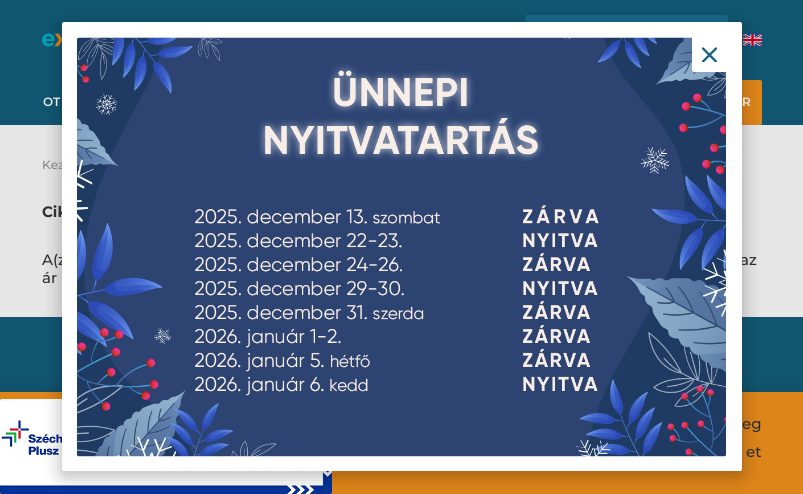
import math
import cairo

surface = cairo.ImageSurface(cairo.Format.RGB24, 803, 494)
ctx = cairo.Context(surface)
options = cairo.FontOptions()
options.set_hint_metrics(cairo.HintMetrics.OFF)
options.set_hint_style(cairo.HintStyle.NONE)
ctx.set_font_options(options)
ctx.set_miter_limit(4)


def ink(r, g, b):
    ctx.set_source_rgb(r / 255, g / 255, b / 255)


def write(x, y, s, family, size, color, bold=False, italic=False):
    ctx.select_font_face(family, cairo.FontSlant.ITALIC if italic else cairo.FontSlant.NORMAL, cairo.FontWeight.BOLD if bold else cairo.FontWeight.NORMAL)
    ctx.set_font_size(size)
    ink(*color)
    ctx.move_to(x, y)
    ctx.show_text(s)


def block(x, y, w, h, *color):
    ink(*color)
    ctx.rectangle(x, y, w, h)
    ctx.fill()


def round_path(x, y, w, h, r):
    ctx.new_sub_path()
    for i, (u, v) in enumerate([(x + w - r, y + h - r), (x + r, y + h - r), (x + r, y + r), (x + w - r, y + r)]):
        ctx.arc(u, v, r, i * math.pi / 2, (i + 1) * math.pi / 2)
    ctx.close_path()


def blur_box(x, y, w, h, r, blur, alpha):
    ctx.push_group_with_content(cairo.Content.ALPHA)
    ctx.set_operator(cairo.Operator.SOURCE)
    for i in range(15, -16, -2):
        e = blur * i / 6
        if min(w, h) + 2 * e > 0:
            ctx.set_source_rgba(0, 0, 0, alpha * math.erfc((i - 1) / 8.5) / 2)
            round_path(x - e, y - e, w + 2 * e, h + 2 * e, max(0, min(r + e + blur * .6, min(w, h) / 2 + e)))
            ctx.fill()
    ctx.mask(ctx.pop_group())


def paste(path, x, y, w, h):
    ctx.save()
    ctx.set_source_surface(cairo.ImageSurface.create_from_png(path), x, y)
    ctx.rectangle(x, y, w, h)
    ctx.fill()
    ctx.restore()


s1 = dict(family="Montserrat Medium", size=12, color=(132, 132, 132))
s2 = dict(family="Montserrat", size=15, color=(46, 46, 46), bold=True)
s3 = dict(family="Montserrat Medium", size=15, color=(46, 46, 46))
s4 = dict(family="Montserrat SemiBold", size=12, color=(230, 230, 230))

ink(230, 230, 230)
ctx.paint()
block(0, 0, 803, 125, 17, 86, 113)
paste("pic2.png", 42, 33, 20, 14)
ink(22, 106, 137)
round_path(525, 15, 203, 50, 2)
ctx.fill()
paste("pic3.png", 743, 33, 19, 14)
ink(222, 133, 26)
round_path(685, 80, 77, 45, 2)
ctx.fill()
block(0, 317, 803, 75, 17, 86, 113)
ink(0, 0, 0)
blur_box(0, 392, 803, 102, 0, 10, 0.15)
block(0, 392, 803, 102, 222, 133, 26)
paste("pic4.png", 0, 399, 332, 95)
ink(0, 0, 0)
blur_box(62, 27, 680, 449, 2, 10, 0.15)
blur_box(62, 27, 680, 449, 2, 10, 0.15)
write(42, 169, "Kez", **s1)
write(42, 217, "Cik", **s2)
write(42, 265, "A(z", **s3)
write(740, 265, "az", **s3)
ink(255, 255, 255)
round_path(62, 22, 680, 449, 2)
ctx.fill()
paste("pic1.png", 77, 37, 649, 420)
ctx.new_path()
ctx.move_to(692, 37)
ctx.line_to(727, 37)
ctx.line_to(727, 72)
ctx.line_to(694, 72)
ctx.curve_to(693, 72, 692, 71, 692, 70)
ctx.close_path()
ctx.fill()
ctx.save()
ctx.rectangle(702, 47, 15, 15)
ctx.clip()
ctx.new_path()
ctx.move_to(703, 61.5)
ctx.line_to(716, 48.5)
ctx.move_to(716, 61.5)
ctx.line_to(703, 48.5)
ink(19, 96, 126)
ctx.set_line_width(2.3)
ctx.set_line_cap(cairo.LineCap.ROUND)
ctx.stroke()
ctx.restore()
write(43, 106, "OT", **s4)
write(742, 106, "R", **s4)
write(42, 283, "ár", **s3)
write(742, 429, "eg", **s3)
write(746, 457, "et", **s3)
surface.write_to_png("screenshot.png")
